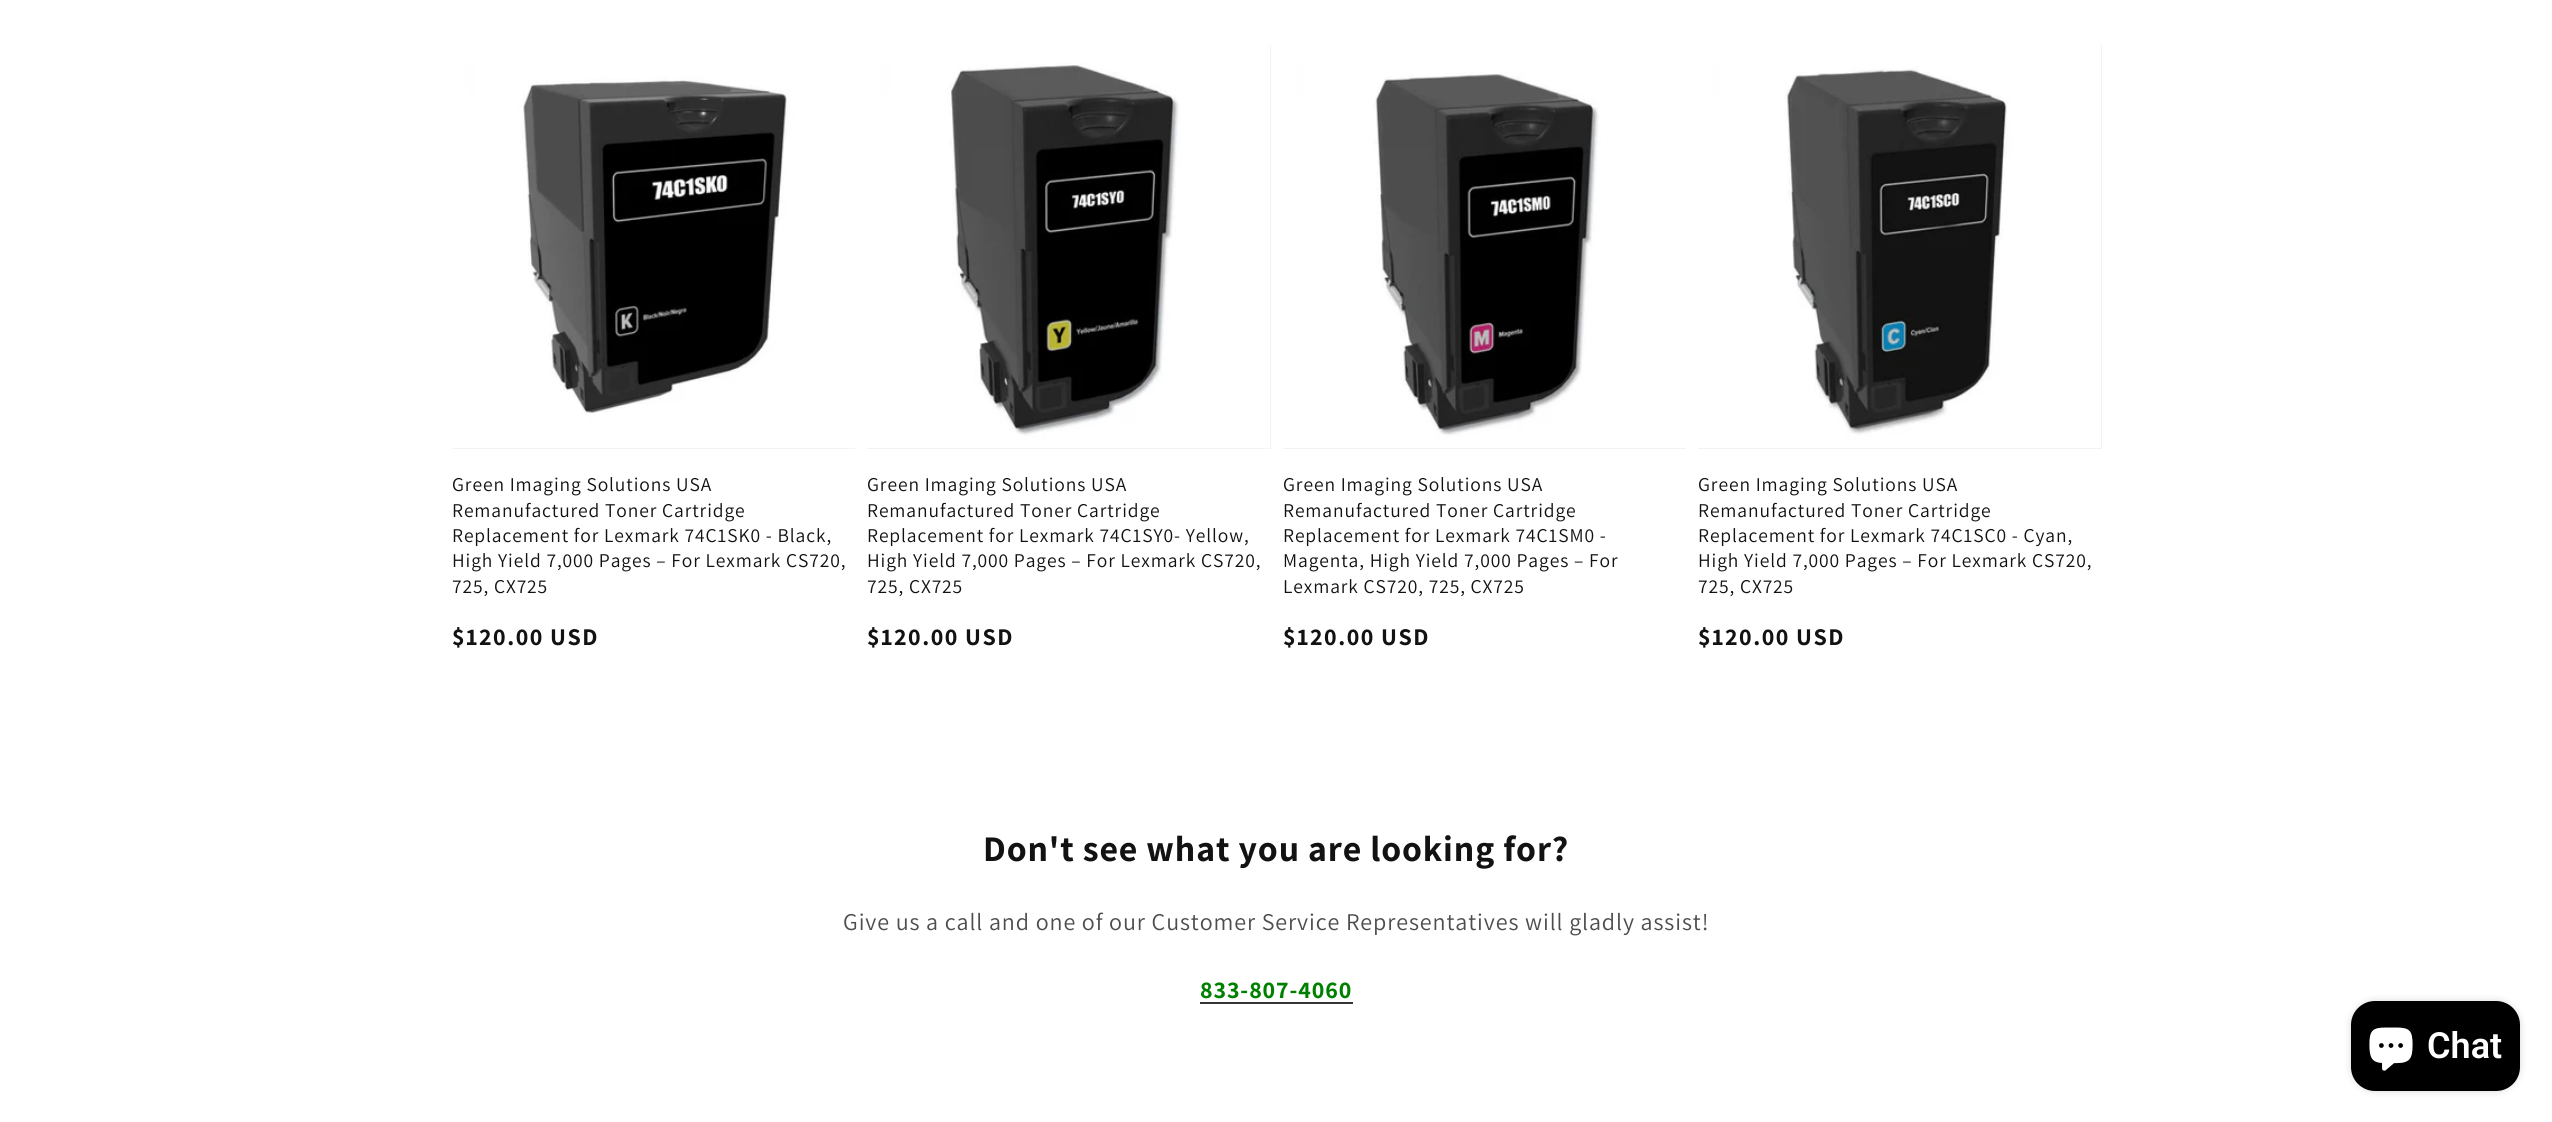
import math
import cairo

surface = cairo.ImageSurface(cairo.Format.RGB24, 2552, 1122)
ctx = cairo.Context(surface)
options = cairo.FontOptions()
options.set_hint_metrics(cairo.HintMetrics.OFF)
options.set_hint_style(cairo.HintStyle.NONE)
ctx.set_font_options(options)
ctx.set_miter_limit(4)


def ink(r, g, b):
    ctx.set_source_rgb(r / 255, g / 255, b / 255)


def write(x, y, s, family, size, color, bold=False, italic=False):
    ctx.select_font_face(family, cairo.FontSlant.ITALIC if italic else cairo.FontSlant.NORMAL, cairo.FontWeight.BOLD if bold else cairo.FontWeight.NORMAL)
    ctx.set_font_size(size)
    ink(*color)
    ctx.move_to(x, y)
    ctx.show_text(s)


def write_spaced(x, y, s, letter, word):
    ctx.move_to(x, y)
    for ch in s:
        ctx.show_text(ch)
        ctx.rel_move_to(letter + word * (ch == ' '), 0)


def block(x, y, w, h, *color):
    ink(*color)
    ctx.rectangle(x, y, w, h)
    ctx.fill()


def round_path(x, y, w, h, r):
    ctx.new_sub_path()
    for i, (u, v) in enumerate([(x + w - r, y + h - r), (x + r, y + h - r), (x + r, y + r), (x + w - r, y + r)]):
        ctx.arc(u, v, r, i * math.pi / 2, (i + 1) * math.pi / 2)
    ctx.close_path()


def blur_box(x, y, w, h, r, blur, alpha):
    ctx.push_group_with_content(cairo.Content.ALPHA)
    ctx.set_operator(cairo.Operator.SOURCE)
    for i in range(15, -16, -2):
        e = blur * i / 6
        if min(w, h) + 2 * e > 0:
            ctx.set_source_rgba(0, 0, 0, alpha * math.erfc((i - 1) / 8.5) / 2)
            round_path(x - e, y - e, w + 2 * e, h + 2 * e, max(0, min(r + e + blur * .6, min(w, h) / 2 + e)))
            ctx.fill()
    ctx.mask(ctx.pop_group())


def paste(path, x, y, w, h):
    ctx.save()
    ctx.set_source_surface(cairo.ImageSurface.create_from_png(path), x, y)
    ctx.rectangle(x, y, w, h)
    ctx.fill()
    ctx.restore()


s1 = dict(family="Roboto SemiBold", size=36, color=(255, 255, 255))

ink(255, 255, 255)
ctx.paint()
block(452, 448, 403, 1, 243, 243, 243)
paste("pic1.png", 452, 45, 403, 403)
ctx.select_font_face("Assistant")
ctx.set_font_size(19.5)
ink(18, 18, 18)
write_spaced(452, 491, "Green Imaging Solutions USA", 0.9, 0)
write_spaced(452, 517, "Remanufactured Toner Cartridge", 0.9, 0)
write_spaced(452, 542, "Replacement for Lexmark 74C1SK0 - Black,", 0.9, 0)
write_spaced(452, 567, "High Yield 7,000 Pages – For Lexmark CS720,", 0.9, 0)
write_spaced(452, 593, "725, CX725", 0.9, 0)
ctx.select_font_face("Assistant", cairo.FontSlant.NORMAL, cairo.FontWeight.BOLD)
ctx.set_font_size(24)
write_spaced(452, 645, "$120.00 USD", 1.5, 0)
block(867, 45, 404, 404, 243, 243, 243)
paste("pic2.png", 867, 45, 403, 403)
ctx.select_font_face("Assistant")
ctx.set_font_size(19.5)
ink(18, 18, 18)
write_spaced(867, 491, "Green Imaging Solutions USA", 0.9, 0)
write_spaced(867, 517, "Remanufactured Toner Cartridge", 0.9, 0)
write_spaced(867, 542, "Replacement for Lexmark 74C1SY0- Yellow,", 0.9, 0)
write_spaced(867, 567, "High Yield 7,000 Pages – For Lexmark CS720,", 0.9, 0)
write_spaced(867, 593, "725, CX725", 0.9, 0)
ctx.select_font_face("Assistant", cairo.FontSlant.NORMAL, cairo.FontWeight.BOLD)
ctx.set_font_size(24)
write_spaced(867, 645, "$120.00 USD", 1.5, 0)
block(1283, 448, 403, 1, 243, 243, 243)
paste("pic3.png", 1283, 45, 403, 403)
ctx.select_font_face("Assistant")
ctx.set_font_size(19.5)
ink(18, 18, 18)
write_spaced(1283, 491, "Green Imaging Solutions USA", 0.9, 0)
write_spaced(1283, 517, "Remanufactured Toner Cartridge", 0.9, 0)
write_spaced(1283, 542, "Replacement for Lexmark 74C1SM0 -", 0.9, 0)
write_spaced(1283, 567, "Magenta, High Yield 7,000 Pages – For", 0.9, 0)
write_spaced(1283, 593, "Lexmark CS720, 725, CX725", 0.9, 0)
ctx.select_font_face("Assistant", cairo.FontSlant.NORMAL, cairo.FontWeight.BOLD)
ctx.set_font_size(24)
write_spaced(1283, 645, "$120.00 USD", 1.5, 0)
block(1698, 45, 404, 404, 243, 243, 243)
paste("pic4.png", 1698, 45, 403, 403)
ctx.select_font_face("Assistant")
ctx.set_font_size(19.5)
ink(18, 18, 18)
write_spaced(1698, 491, "Green Imaging Solutions USA", 0.9, 0)
write_spaced(1698, 517, "Remanufactured Toner Cartridge", 0.9, 0)
write_spaced(1698, 542, "Replacement for Lexmark 74C1SC0 - Cyan,", 0.9, 0)
write_spaced(1698, 567, "High Yield 7,000 Pages – For Lexmark CS720,", 0.9, 0)
write_spaced(1698, 593, "725, CX725", 0.9, 0)
ctx.select_font_face("Assistant", cairo.FontSlant.NORMAL, cairo.FontWeight.BOLD)
ctx.set_font_size(24)
write_spaced(1698, 645, "$120.00 USD", 1.5, 0)
ctx.set_font_size(36)
write_spaced(983, 861, "Don't see what you are looking for?", 0.9, 0)
ctx.select_font_face("Assistant")
ctx.set_font_size(24)
ink(77, 77, 77)
write_spaced(843, 930, "Give us a call and one of our Customer Service Representatives will gladly assist!", 0.9, 0)
ctx.select_font_face("Assistant", cairo.FontSlant.NORMAL, cairo.FontWeight.BOLD)
ink(0, 128, 0)
write_spaced(1200, 998, "833-807-4060", 0.9, 0)
block(1200, 1002, 153, 2, 54, 54, 54)
ink(0, 0, 0)
blur_box(2351, 1001, 169, 90, 24, 4, 0.15)
ink(0, 0, 0)
round_path(2351, 1001, 169, 90, 24)
ctx.fill()
paste("pic5.png", 2369, 1027, 44, 44)
write(2427, 1058, "Chat", **s1)
surface.write_to_png("screenshot.png")
